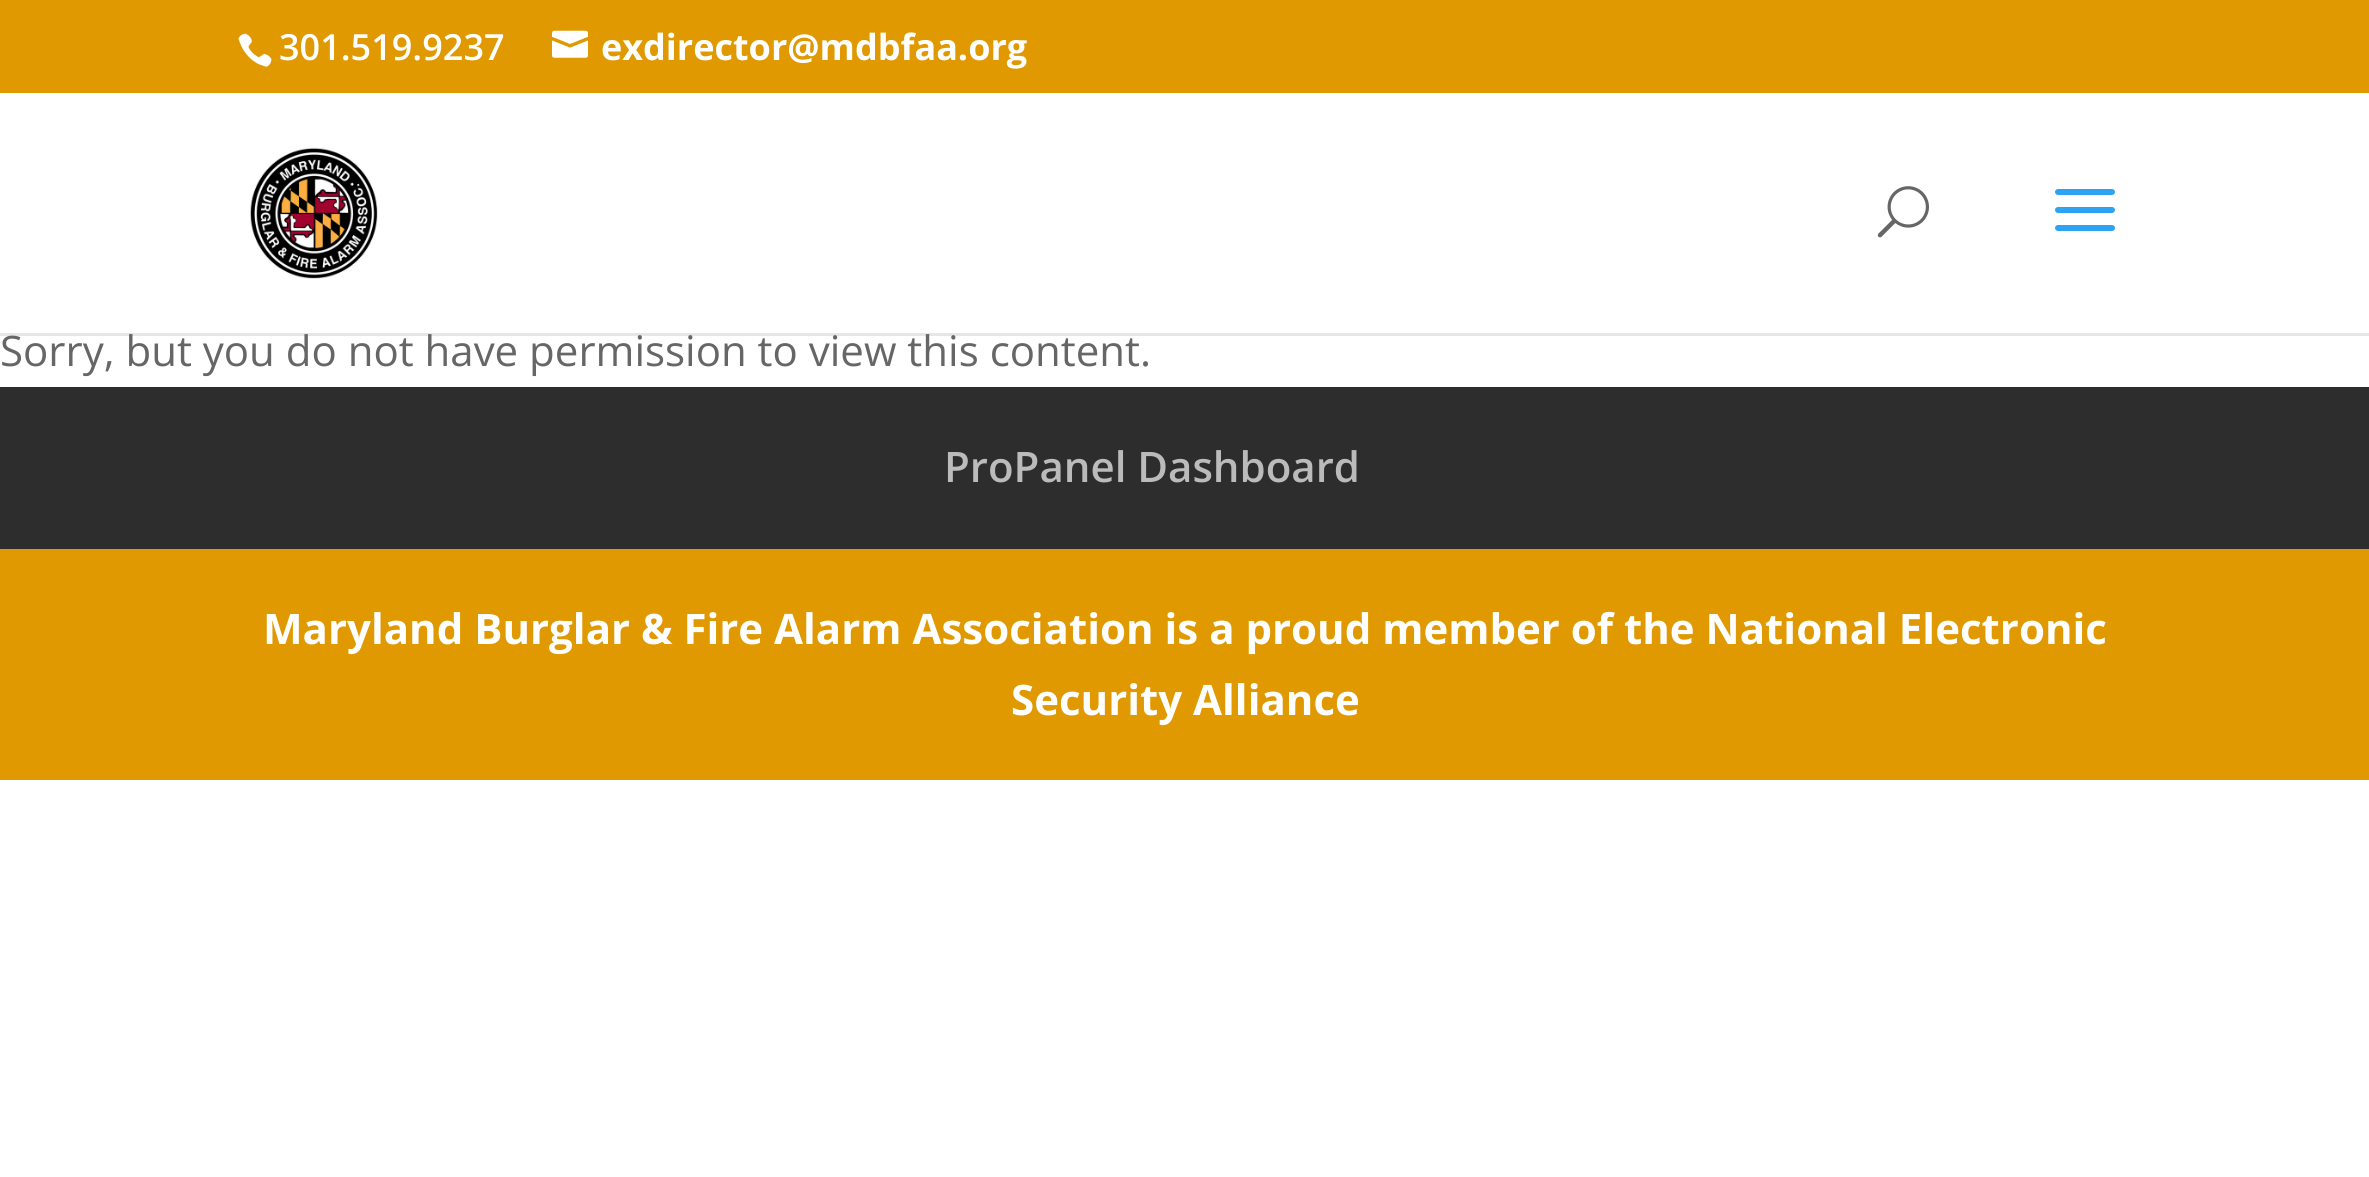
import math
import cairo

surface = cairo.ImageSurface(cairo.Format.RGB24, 2369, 1177)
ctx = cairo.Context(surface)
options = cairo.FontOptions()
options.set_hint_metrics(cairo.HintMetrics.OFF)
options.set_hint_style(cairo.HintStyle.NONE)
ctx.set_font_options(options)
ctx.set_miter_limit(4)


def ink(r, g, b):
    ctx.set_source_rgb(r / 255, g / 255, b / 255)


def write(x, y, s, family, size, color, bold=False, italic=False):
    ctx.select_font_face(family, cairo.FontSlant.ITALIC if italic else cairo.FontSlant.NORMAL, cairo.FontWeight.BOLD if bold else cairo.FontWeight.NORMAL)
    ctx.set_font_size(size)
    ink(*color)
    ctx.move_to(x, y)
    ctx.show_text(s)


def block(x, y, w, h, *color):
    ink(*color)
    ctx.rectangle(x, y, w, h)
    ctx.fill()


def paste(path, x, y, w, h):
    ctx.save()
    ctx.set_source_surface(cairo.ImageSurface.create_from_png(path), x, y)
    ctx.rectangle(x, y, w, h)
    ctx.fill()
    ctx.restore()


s1 = dict(family="Open Sans SemiBold", size=36, color=(255, 255, 255))
s2 = dict(family="Open Sans", size=36, color=(255, 255, 255), bold=True)
s3 = dict(family="Open Sans", size=42, color=(102, 102, 102))
s4 = dict(family="Open Sans SemiBold", size=42, color=(187, 187, 187))
s5 = dict(family="Open Sans", size=42, color=(255, 255, 255), bold=True)

ink(255, 255, 255)
ctx.paint()
block(0, 0, 2369, 93, 224, 153, 0)
paste("pic1.png", 238, 33, 34, 34)
write(279, 60, "301.519.9237", **s1)
paste("pic2.png", 552, 30, 36, 28)
write(601, 60, "exdirector@mdbfaa.org", **s2)
ctx.set_source_rgba(0, 0, 0, 0.1)
ctx.rectangle(0, 333, 2369, 3)
ctx.fill()
paste("pic3.png", 250, 147, 128, 132)
paste("pic4.png", 1877, 186, 52, 52)
paste("pic5.png", 2055, 189, 60, 42)
write(0, 366, "Sorry, but you do not have permission to view this content.", **s3)
block(0, 387, 2369, 162, 45, 45, 45)
write(944, 482, "ProPanel Dashboard", **s4)
block(0, 549, 2369, 231, 224, 153, 0)
write(263, 644, "Maryland Burglar & Fire Alarm Association is a proud member of the National Electronic", **s5)
write(1011, 715, "Security Alliance", **s5)
surface.write_to_png("screenshot.png")
